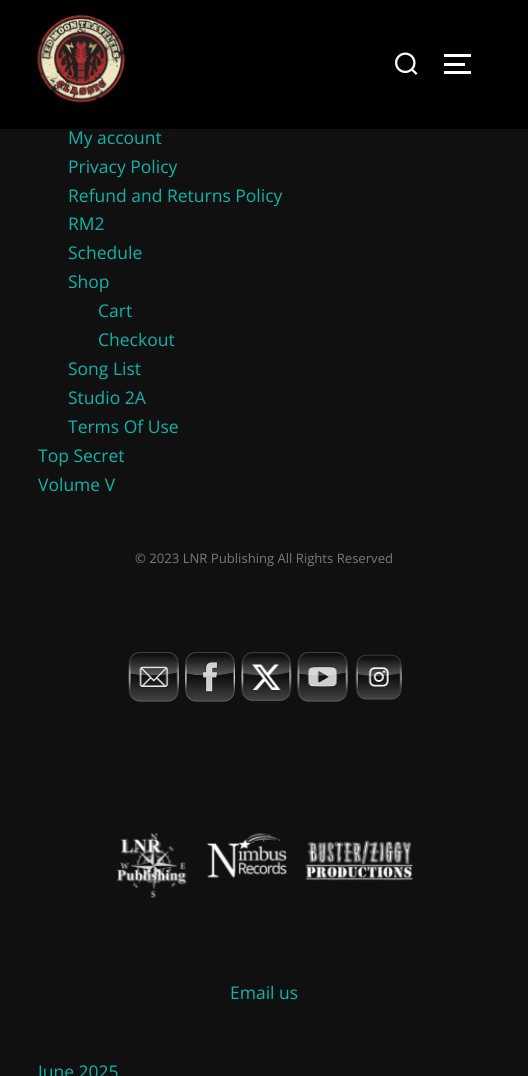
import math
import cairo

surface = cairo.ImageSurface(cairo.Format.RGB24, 528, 1076)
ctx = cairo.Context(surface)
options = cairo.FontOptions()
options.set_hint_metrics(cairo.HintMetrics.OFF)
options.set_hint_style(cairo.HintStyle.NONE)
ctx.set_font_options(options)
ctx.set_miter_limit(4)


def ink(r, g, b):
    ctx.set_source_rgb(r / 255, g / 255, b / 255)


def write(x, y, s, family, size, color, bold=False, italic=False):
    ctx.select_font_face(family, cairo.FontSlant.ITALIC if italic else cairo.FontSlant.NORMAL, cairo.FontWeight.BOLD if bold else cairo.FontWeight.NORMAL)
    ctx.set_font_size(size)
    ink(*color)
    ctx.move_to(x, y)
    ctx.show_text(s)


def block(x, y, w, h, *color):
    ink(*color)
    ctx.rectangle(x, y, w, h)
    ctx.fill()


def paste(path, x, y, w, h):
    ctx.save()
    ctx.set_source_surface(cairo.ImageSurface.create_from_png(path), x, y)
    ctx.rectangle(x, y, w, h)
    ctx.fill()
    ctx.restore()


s1 = dict(family="Open Sans", size=17.5, color=(11, 180, 170))
s2 = dict(family="Open Sans", size=13.1, color=(120, 120, 127))

ink(16, 16, 16)
ctx.paint()
block(0, 0, 528, 129, 0, 0, 0)
paste("pic1.png", 37, 15, 88, 88)
paste("pic2.png", 395, 52, 23, 23)
block(444, 54, 27, 3, 255, 255, 255)
block(444, 63, 21, 3, 255, 255, 255)
block(444, 71, 27, 3, 255, 255, 255)
write(68, 144, "My account", **s1)
write(68, 173, "Privacy Policy", **s1)
write(68, 202, "Refund and Returns Policy", **s1)
write(68, 230, "RM2", **s1)
write(68, 259, "Schedule", **s1)
write(68, 288, "Shop", **s1)
write(98, 317, "Cart", **s1)
write(98, 346, "Checkout", **s1)
write(68, 375, "Song List", **s1)
write(68, 404, "Studio 2A", **s1)
write(68, 433, "Terms Of Use", **s1)
write(38, 462, "Top Secret", **s1)
write(38, 491, "Volume V", **s1)
write(135, 563, "© 2023 LNR Publishing All Rights Reserved", **s2)
paste("pic3.png", 128, 652, 51, 50)
paste("pic4.png", 185, 652, 50, 50)
paste("pic5.png", 241, 652, 51, 50)
paste("pic6.png", 297, 652, 51, 50)
paste("pic7.png", 355, 654, 47, 46)
paste("pic8.png", 116, 833, 297, 65)
write(230, 999, "Email us", **s1)
write(38, 1078, "June 2025", **s1)
surface.write_to_png("screenshot.png")
